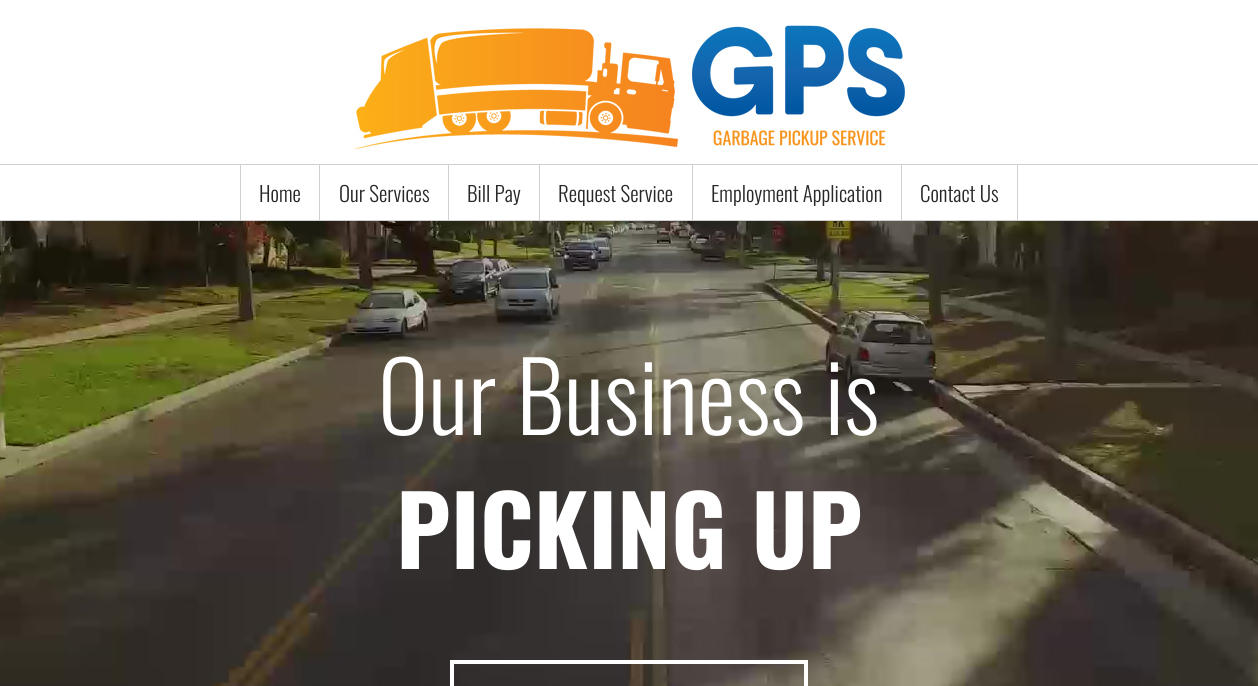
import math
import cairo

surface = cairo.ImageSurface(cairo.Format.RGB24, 1258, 686)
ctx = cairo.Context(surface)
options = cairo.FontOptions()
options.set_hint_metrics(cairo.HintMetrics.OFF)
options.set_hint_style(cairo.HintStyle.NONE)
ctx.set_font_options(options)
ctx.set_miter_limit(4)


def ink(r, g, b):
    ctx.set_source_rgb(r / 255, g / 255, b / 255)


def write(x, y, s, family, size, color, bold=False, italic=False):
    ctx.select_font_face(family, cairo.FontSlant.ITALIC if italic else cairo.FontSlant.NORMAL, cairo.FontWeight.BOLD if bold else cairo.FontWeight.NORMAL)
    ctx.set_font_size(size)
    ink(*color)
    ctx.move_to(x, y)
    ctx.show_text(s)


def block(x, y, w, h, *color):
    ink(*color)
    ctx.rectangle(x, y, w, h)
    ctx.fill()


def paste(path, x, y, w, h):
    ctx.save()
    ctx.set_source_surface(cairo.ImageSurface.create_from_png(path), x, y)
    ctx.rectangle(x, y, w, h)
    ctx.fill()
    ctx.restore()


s1 = dict(family="Oswald Light", size=21, color=(40, 40, 40))
s2 = dict(family="Oswald Light", size=96, color=(255, 255, 255))
s3 = dict(family="Oswald", size=96, color=(255, 255, 255), bold=True)

ink(255, 255, 255)
ctx.paint()
paste("pic1.png", 354, 25, 551, 124)
block(0, 164, 1258, 1, 208, 208, 208)
block(0, 220, 1258, 1, 208, 208, 208)
block(319, 165, 1, 55, 208, 208, 208)
block(240, 165, 1, 55, 208, 208, 208)
write(259, 202, "Home", **s1)
block(448, 165, 1, 55, 208, 208, 208)
write(339, 202, "Our Services", **s1)
block(539, 165, 1, 55, 208, 208, 208)
write(467, 202, "Bill Pay", **s1)
block(692, 165, 1, 55, 208, 208, 208)
write(558, 202, "Request Service", **s1)
block(901, 165, 1, 55, 208, 208, 208)
write(711, 202, "Employment Application", **s1)
block(1017, 165, 1, 55, 208, 208, 208)
write(920, 202, "Contact Us", **s1)
paste("pic2.png", 0, 221, 1258, 465)
write(378, 435, "Our Business is", **s2)
write(396, 569, "PICKING UP", **s3)
paste("pic3.png", 450, 660, 358, 26)
surface.write_to_png("screenshot.png")
